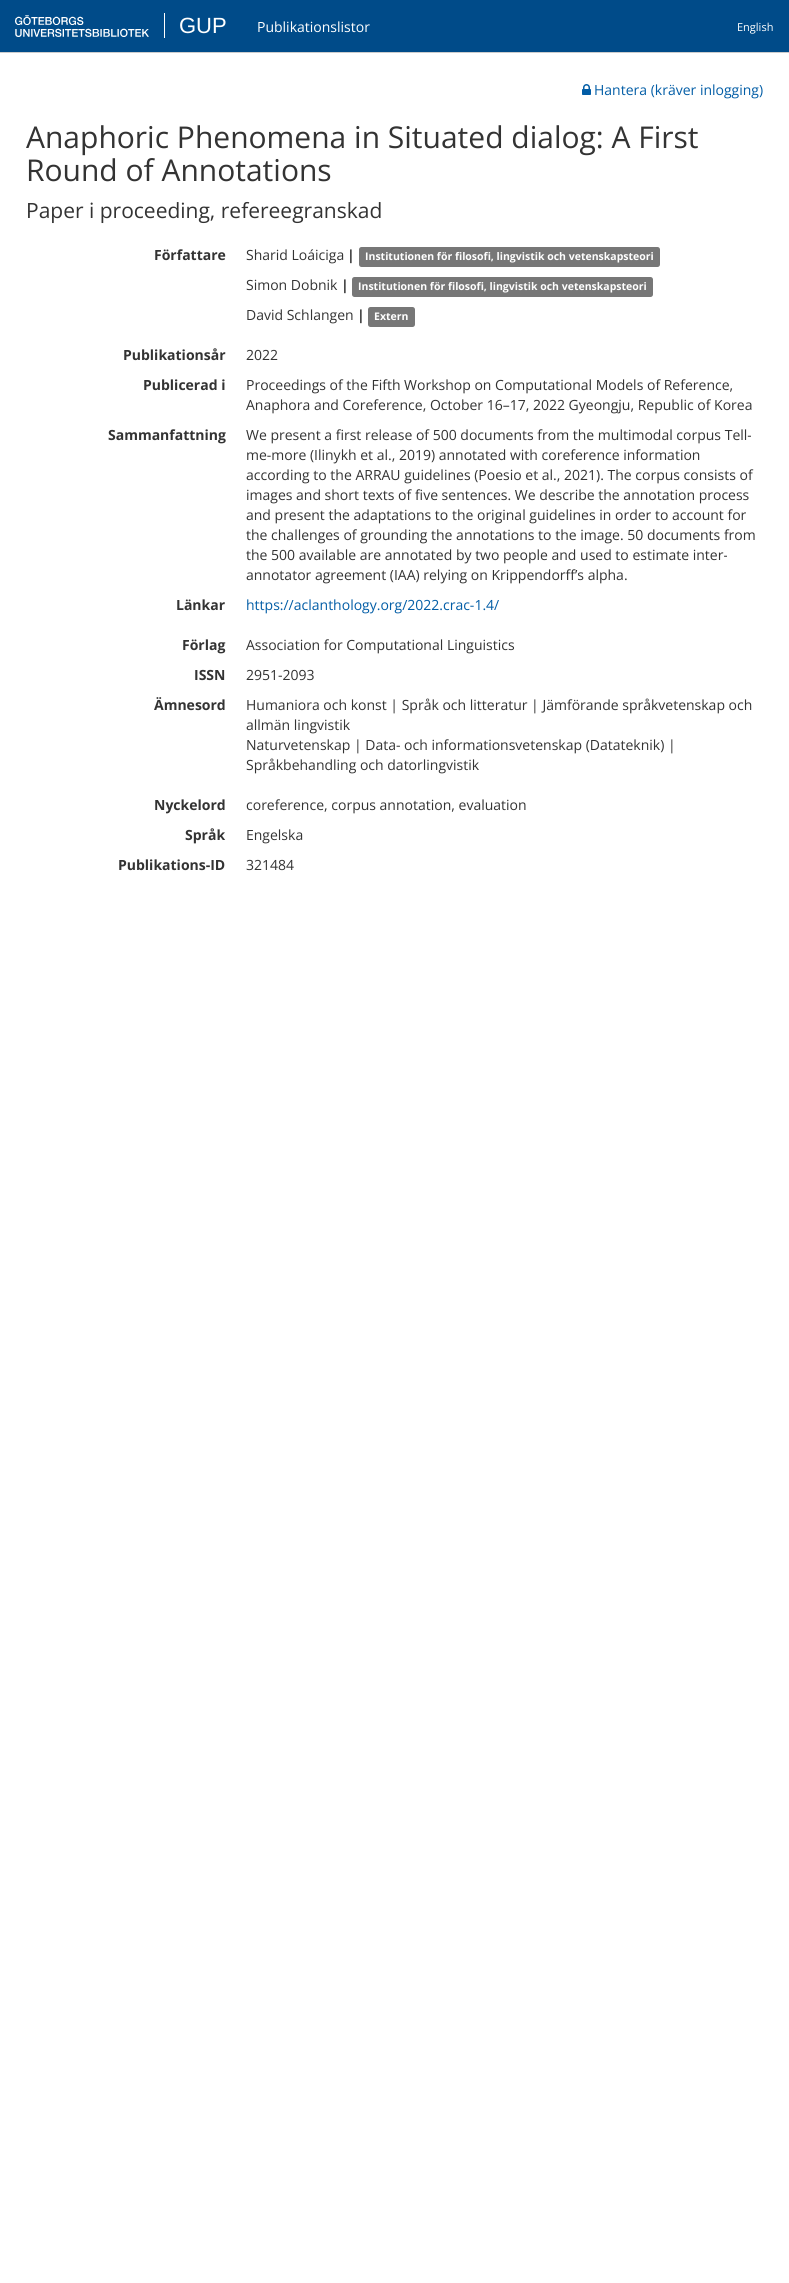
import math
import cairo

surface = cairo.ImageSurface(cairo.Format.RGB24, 789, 2283)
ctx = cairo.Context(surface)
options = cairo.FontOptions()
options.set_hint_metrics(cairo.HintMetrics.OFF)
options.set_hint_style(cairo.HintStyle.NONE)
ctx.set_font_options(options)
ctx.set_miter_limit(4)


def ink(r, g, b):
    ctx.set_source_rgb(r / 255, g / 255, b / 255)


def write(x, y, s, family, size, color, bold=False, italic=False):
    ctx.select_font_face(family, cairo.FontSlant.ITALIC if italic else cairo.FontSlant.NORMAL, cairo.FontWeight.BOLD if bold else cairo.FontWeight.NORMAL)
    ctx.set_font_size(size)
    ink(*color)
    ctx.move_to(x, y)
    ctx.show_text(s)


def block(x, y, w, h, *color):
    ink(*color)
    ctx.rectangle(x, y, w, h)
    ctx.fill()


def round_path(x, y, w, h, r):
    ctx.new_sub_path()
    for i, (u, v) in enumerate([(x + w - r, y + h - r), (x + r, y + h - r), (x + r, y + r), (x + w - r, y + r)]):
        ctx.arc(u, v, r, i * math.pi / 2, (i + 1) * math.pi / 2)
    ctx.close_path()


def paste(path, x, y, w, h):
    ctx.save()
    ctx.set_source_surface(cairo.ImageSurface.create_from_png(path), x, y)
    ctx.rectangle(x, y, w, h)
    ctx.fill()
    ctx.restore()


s1 = dict(family="Liberation Sans", size=22, color=(255, 255, 255))
s2 = dict(family="Open Sans", size=14, color=(255, 255, 255))
s3 = dict(family="Open Sans", size=11, color=(255, 255, 255))
s4 = dict(family="Open Sans", size=14, color=(2, 93, 166))
s5 = dict(family="Open Sans", size=30, color=(51, 51, 51))
s6 = dict(family="Open Sans", size=21, color=(51, 51, 51))
s7 = dict(family="Open Sans", size=14, color=(51, 51, 51), bold=True)
s8 = dict(family="Open Sans", size=14, color=(51, 51, 51))
s9 = dict(family="Open Sans", size=10.5, color=(255, 255, 255), bold=True)

ink(255, 255, 255)
ctx.paint()
block(0, 0, 789, 52, 0, 75, 137)
block(0, 52, 789, 1, 204, 204, 204)
paste("pic1.png", 15, 15, 134, 22)
block(164, 13, 1, 25, 255, 255, 255)
write(179, 33, "GUP", **s1)
write(257, 32, "Publikationslistor", **s2)
write(737, 31, "English", **s3)
paste("pic2.png", 582, 84, 9, 11)
write(594, 95, "Hantera (kräver inlogging)", **s4)
write(26, 148, "Anaphoric Phenomena in Situated dialog: A First", **s5)
write(26, 181, "Round of Annotations", **s5)
write(26, 218, "Paper i proceeding, refereegranskad", **s6)
write(154, 260, "Författare", **s7)
write(246, 260, "Sharid Loáiciga", **s8)
write(347, 260, "|", **s7)
ink(119, 119, 119)
round_path(359, 247, 301, 20, 2.5)
ctx.fill()
write(365, 260, "Institutionen för filosofi, lingvistik och vetenskapsteori", **s9)
write(246, 290, "Simon Dobnik", **s8)
write(341, 290, "|", **s7)
ink(119, 119, 119)
round_path(352, 277, 301, 20, 2.5)
ctx.fill()
write(358, 290, "Institutionen för filosofi, lingvistik och vetenskapsteori", **s9)
write(246, 320, "David Schlangen", **s8)
write(357, 320, "|", **s7)
ink(119, 119, 119)
round_path(368, 307, 47, 20, 2.5)
ctx.fill()
write(374, 320, "Extern", **s9)
write(123, 360, "Publikationsår", **s7)
write(246, 360, "2022", **s8)
write(143, 390, "Publicerad i", **s7)
write(246, 390, "Proceedings of the Fifth Workshop on Computational Models of Reference,", **s8)
write(246, 410, "Anaphora and Coreference, October 16–17, 2022 Gyeongju, Republic of Korea", **s8)
write(108, 440, "Sammanfattning", **s7)
write(246, 440, "We present a first release of 500 documents from the multimodal corpus Tell-", **s8)
write(246, 460, "me-more (Ilinykh et al., 2019) annotated with coreference information", **s8)
write(246, 480, "according to the ARRAU guidelines (Poesio et al., 2021). The corpus consists of", **s8)
write(246, 500, "images and short texts of five sentences. We describe the annotation process", **s8)
write(246, 520, "and present the adaptations to the original guidelines in order to account for", **s8)
write(246, 540, "the challenges of grounding the annotations to the image. 50 documents from", **s8)
write(246, 560, "the 500 available are annotated by two people and used to estimate inter-", **s8)
write(246, 580, "annotator agreement (IAA) relying on Krippendorff’s alpha.", **s8)
write(176, 610, "Länkar", **s7)
write(246, 610, "https://aclanthology.org/2022.crac-1.4/", **s4)
write(182, 650, "Förlag", **s7)
write(246, 650, "Association for Computational Linguistics", **s8)
write(194, 680, "ISSN", **s7)
write(246, 680, "2951-2093", **s8)
write(154, 710, "Ämnesord", **s7)
write(246, 710, "Humaniora och konst | Språk och litteratur | Jämförande språkvetenskap och", **s8)
write(246, 730, "allmän lingvistik", **s8)
write(246, 750, "Naturvetenskap | Data- och informationsvetenskap (Datateknik) |", **s8)
write(246, 770, "Språkbehandling och datorlingvistik", **s8)
write(154, 810, "Nyckelord", **s7)
write(246, 810, "coreference, corpus annotation, evaluation", **s8)
write(185, 840, "Språk", **s7)
write(246, 840, "Engelska", **s8)
write(118, 870, "Publikations-ID", **s7)
write(246, 870, "321484", **s8)
surface.write_to_png("screenshot.png")
